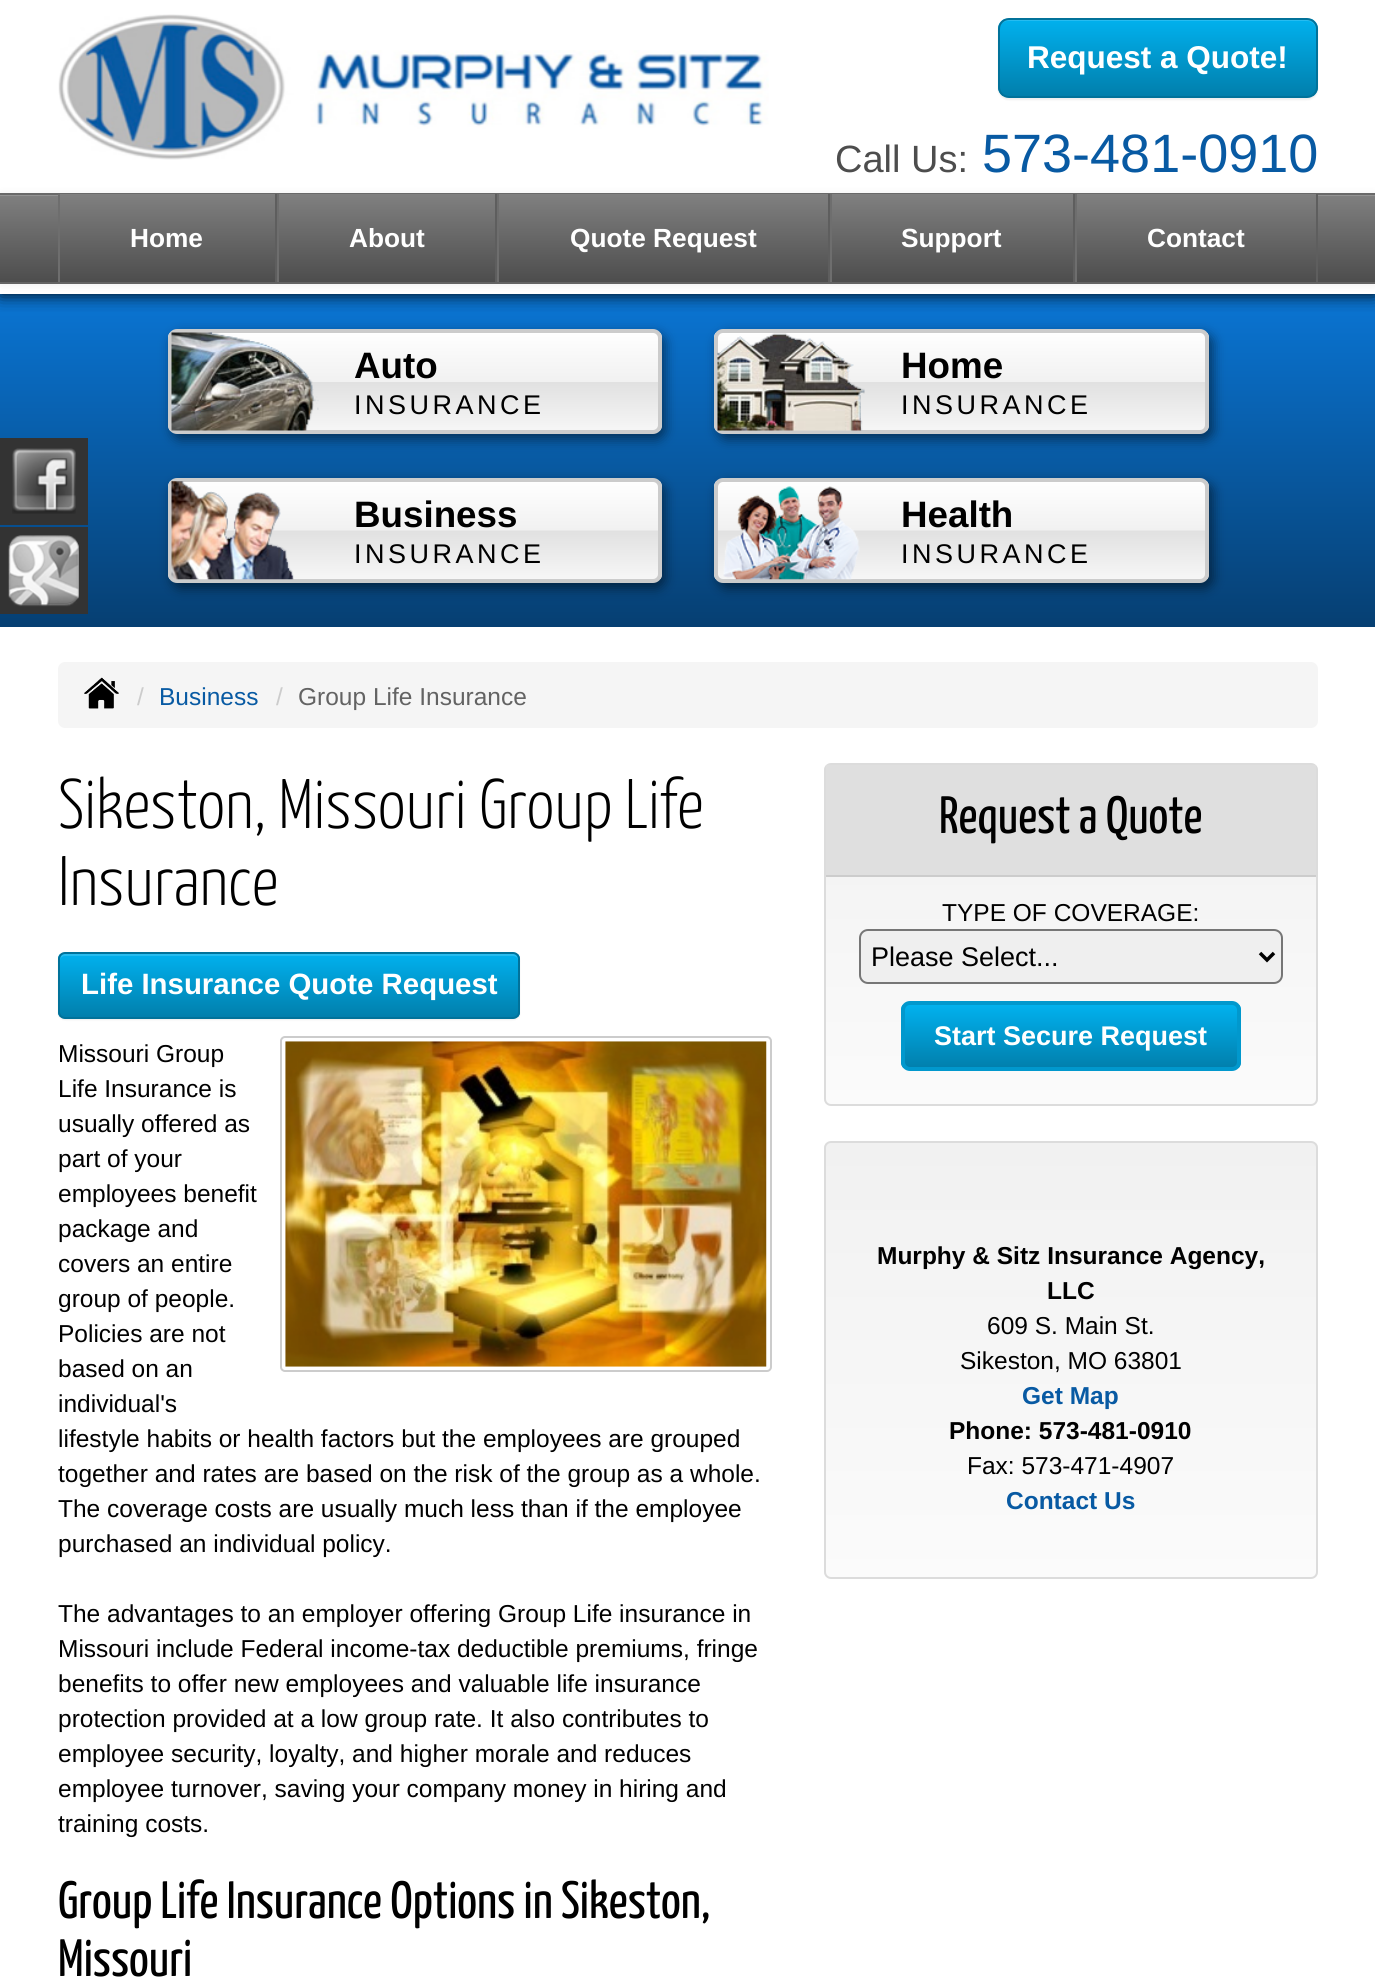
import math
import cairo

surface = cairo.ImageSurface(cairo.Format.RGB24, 1375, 1985)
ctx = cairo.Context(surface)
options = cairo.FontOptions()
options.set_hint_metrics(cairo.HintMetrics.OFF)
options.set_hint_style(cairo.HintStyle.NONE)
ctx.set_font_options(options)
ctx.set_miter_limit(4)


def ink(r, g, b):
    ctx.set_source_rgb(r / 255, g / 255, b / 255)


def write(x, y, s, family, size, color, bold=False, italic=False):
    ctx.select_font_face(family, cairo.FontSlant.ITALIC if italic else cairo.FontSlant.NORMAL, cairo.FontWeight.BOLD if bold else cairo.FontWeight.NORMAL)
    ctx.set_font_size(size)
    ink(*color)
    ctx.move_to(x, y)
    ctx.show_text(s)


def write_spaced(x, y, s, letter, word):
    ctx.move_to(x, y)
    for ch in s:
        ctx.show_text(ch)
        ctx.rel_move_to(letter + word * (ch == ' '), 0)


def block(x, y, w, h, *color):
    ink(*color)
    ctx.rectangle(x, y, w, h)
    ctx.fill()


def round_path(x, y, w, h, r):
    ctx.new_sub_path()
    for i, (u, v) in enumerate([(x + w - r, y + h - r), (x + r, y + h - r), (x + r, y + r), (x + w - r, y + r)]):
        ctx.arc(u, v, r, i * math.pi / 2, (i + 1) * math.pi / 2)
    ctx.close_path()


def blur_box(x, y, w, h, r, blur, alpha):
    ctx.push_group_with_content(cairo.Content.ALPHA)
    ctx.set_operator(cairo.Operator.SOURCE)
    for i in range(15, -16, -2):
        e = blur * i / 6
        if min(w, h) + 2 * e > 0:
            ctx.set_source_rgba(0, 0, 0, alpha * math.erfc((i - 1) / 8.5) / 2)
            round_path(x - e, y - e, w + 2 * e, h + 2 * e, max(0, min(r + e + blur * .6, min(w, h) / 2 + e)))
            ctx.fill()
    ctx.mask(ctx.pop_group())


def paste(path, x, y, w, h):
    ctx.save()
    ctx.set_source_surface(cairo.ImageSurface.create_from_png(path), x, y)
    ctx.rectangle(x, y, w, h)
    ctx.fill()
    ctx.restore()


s1 = dict(family="Liberation Sans", size=31.5, color=(255, 255, 255), bold=True)
s2 = dict(family="Liberation Sans", size=38, color=(77, 77, 77))
s3 = dict(family="Liberation Sans", size=54, color=(8, 90, 163))
s4 = dict(family="Liberation Sans", size=26.25, color=(255, 255, 255), bold=True)
s5 = dict(family="Liberation Sans", size=36.75, color=(0, 0, 0), bold=True)
s6 = dict(family="Liberation Sans", size=24.5, color=(204, 204, 204))
s7 = dict(family="Liberation Sans", size=24.5, color=(8, 90, 163))
s8 = dict(family="Liberation Sans", size=24.5, color=(99, 99, 99))
s9 = dict(family="Yanone Kaffeesatz Light", size=70, color=(0, 0, 0))
s10 = dict(family="Liberation Sans", size=29.4, color=(255, 255, 255), bold=True)
s11 = dict(family="Liberation Sans", size=24.5, color=(0, 0, 0))
s12 = dict(family="Yanone Kaffeesatz", size=52.5, color=(0, 0, 0))
s13 = dict(family="Liberation Sans", size=27, color=(0, 0, 0))
s14 = dict(family="Liberation Sans", size=27, color=(255, 255, 255), bold=True)
s15 = dict(family="Liberation Sans", size=24.5, color=(0, 0, 0), bold=True)
s16 = dict(family="Liberation Sans", size=24.5, color=(8, 90, 163), bold=True)

ink(255, 255, 255)
ctx.paint()
gradient = cairo.LinearGradient(688, 294, 688, 627)
gradient.add_color_stop_rgba(0, 0.039, 0.459, 0.831, 1)
gradient.add_color_stop_rgba(1, 0.024, 0.247, 0.447, 1)
ctx.set_source(gradient)
ctx.rectangle(0, 294, 1375, 333)
ctx.fill()
ctx.save()
ctx.rectangle(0, 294, 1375, 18)
ctx.clip()
ink(0, 0, 0)
blur_box(0, 0, 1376, 294, 0, 9, 1)
ctx.restore()
paste("pic1.png", 58, 14, 711, 146)
ink(0, 0, 0)
blur_box(998, 19, 320, 81, 11, 1, 0.07)
ctx.save()
round_path(998, 18, 320, 80, 11)
ctx.clip()
gradient = cairo.LinearGradient(1158, 19, 1158, 96)
gradient.add_color_stop_rgba(0, 0.004, 0.694, 0.933, 1)
gradient.add_color_stop_rgba(1, 0.004, 0.498, 0.675, 1)
ctx.set_source(gradient)
ctx.rectangle(998, 19, 320, 77)
ctx.fill()
ctx.restore()
ctx.set_source_rgba(1, 1, 1, 0.15)
ctx.new_path()
ctx.move_to(1008, 21)
ctx.line_to(1307, 21)
ctx.curve_to(1312, 21, 1316, 25, 1316, 30)
ctx.line_to(1316, 28)
ctx.curve_to(1316, 23, 1312, 19, 1307, 19)
ctx.line_to(1008, 19)
ctx.curve_to(1003, 19, 999, 23, 999, 28)
ctx.line_to(999, 30)
ctx.curve_to(999, 25, 1003, 21, 1008, 21)
ctx.close_path()
ctx.fill()
round_path(999, 19, 318, 78, 10)
ink(1, 114, 154)
ctx.stroke()
write(1027, 68, "Request a Quote!", **s1)
write(835, 172, "Call Us:", **s2)
write(982, 172, "573-481-0910", **s3)
ink(0, 0, 0)
blur_box(0, 194, 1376, 91, 0, 4.5, 0.07)
gradient = cairo.LinearGradient(688, 194, 688, 282)
gradient.add_color_stop_rgba(0, 0.502, 0.502, 0.502, 1)
gradient.add_color_stop_rgba(1, 0.302, 0.302, 0.302, 1)
ctx.set_source(gradient)
ctx.rectangle(0, 196, 1375, 86)
ctx.fill()
block(0, 195, 1375, 1, 147, 147, 147)
block(0, 193, 1375, 2, 105, 105, 105)
block(0, 282, 1375, 2, 99, 99, 99)
gradient = cairo.LinearGradient(688, 194, 688, 282)
gradient.add_color_stop_rgba(0, 0.502, 0.502, 0.502, 1)
gradient.add_color_stop_rgba(1, 0.302, 0.302, 0.302, 1)
ctx.set_source(gradient)
ctx.rectangle(60, 194, 1256, 2)
ctx.fill()
block(275, 194, 2, 88, 94, 94, 94)
block(58, 194, 2, 88, 110, 110, 110)
write(130, 247, "Home", **s4)
block(495, 194, 2, 88, 94, 94, 94)
block(277, 194, 2, 88, 110, 110, 110)
write(349, 247, "About", **s4)
block(828, 194, 2, 88, 94, 94, 94)
block(497, 194, 2, 88, 110, 110, 110)
write(570, 247, "Quote Request", **s4)
block(1073, 194, 2, 88, 94, 94, 94)
block(830, 194, 2, 88, 110, 110, 110)
write(901, 247, "Support", **s4)
block(1316, 194, 2, 88, 94, 94, 94)
block(1075, 194, 2, 88, 110, 110, 110)
write(1147, 247, "Contact", **s4)
block(0, 438, 88, 87, 51, 51, 51)
paste("pic2.png", 12, 448, 64, 66)
block(0, 527, 88, 87, 51, 51, 51)
paste("pic3.png", 8, 535, 71, 72)
ink(0, 0, 0)
blur_box(172, 334, 493, 105, 9, 6, 0.5)
ctx.save()
round_path(168, 329, 494, 105, 9)
ctx.clip()
gradient = cairo.LinearGradient(415, 332, 415, 431)
gradient.add_color_stop_rgba(0, 1, 1, 1, 1)
gradient.add_color_stop_rgba(0.5, 0.945, 0.945, 0.945, 1)
gradient.add_color_stop_rgba(0.51, 0.882, 0.882, 0.882, 1)
gradient.add_color_stop_rgba(1, 0.965, 0.965, 0.965, 1)
ctx.set_source(gradient)
ctx.rectangle(168, 333, 494, 98)
ctx.fill()
ctx.restore()
round_path(170, 331, 490, 101, 7)
ink(204, 204, 204)
ctx.set_line_width(4)
ctx.stroke()
paste("pic4.png", 171, 332, 148, 99)
write(354, 378, "Auto", **s5)
ctx.select_font_face("Liberation Sans")
ctx.set_font_size(27)
write_spaced(354, 414, "INSURANCE", 3.5, 0)
ink(0, 0, 0)
blur_box(718, 334, 495, 105, 9, 6, 0.5)
ctx.save()
round_path(714, 329, 495, 105, 9)
ctx.clip()
gradient = cairo.LinearGradient(962, 332, 962, 431)
gradient.add_color_stop_rgba(0, 1, 1, 1, 1)
gradient.add_color_stop_rgba(0.5, 0.945, 0.945, 0.945, 1)
gradient.add_color_stop_rgba(0.51, 0.882, 0.882, 0.882, 1)
gradient.add_color_stop_rgba(1, 0.965, 0.965, 0.965, 1)
ctx.set_source(gradient)
ctx.rectangle(714, 333, 495, 98)
ctx.fill()
ctx.restore()
round_path(716, 331, 491, 101, 7)
ink(204, 204, 204)
ctx.stroke()
paste("pic5.png", 717, 333, 148, 98)
write(901, 378, "Home", **s5)
ctx.select_font_face("Liberation Sans")
ctx.set_font_size(27)
write_spaced(901, 414, "INSURANCE", 3.5, 0)
ink(0, 0, 0)
blur_box(172, 483, 493, 105, 9, 6, 0.5)
ctx.save()
round_path(168, 478, 494, 105, 9)
ctx.clip()
gradient = cairo.LinearGradient(415, 481, 415, 579)
gradient.add_color_stop_rgba(0, 1, 1, 1, 1)
gradient.add_color_stop_rgba(0.5, 0.945, 0.945, 0.945, 1)
gradient.add_color_stop_rgba(0.51, 0.882, 0.882, 0.882, 1)
gradient.add_color_stop_rgba(1, 0.965, 0.965, 0.965, 1)
ctx.set_source(gradient)
ctx.rectangle(168, 481, 494, 98)
ctx.fill()
ctx.restore()
round_path(170, 480, 490, 101, 7)
ink(204, 204, 204)
ctx.stroke()
paste("pic6.png", 171, 481, 123, 99)
write(354, 527, "Business", **s5)
ctx.select_font_face("Liberation Sans")
ctx.set_font_size(27)
write_spaced(354, 563, "INSURANCE", 3.5, 0)
ink(0, 0, 0)
blur_box(718, 483, 495, 105, 9, 6, 0.5)
ctx.save()
round_path(714, 478, 495, 105, 9)
ctx.clip()
gradient = cairo.LinearGradient(962, 481, 962, 579)
gradient.add_color_stop_rgba(0, 1, 1, 1, 1)
gradient.add_color_stop_rgba(0.5, 0.945, 0.945, 0.945, 1)
gradient.add_color_stop_rgba(0.51, 0.882, 0.882, 0.882, 1)
gradient.add_color_stop_rgba(1, 0.965, 0.965, 0.965, 1)
ctx.set_source(gradient)
ctx.rectangle(714, 481, 495, 98)
ctx.fill()
ctx.restore()
round_path(716, 480, 491, 101, 7)
ink(204, 204, 204)
ctx.stroke()
paste("pic7.png", 723, 486, 137, 94)
write(901, 527, "Health", **s5)
ctx.select_font_face("Liberation Sans")
ctx.set_font_size(27)
write_spaced(901, 563, "INSURANCE", 3.5, 0)
ink(245, 245, 245)
round_path(58, 662, 1260, 66, 7)
ctx.fill()
paste("pic8.png", 84, 677, 35, 32)
write(137, 705, "/", **s6)
write(159, 705, "Business", **s7)
write(276, 705, "/", **s6)
write(298, 705, "Group Life Insurance", **s8)
write(58, 828, "Sikeston, Missouri Group Life", **s9)
write(58, 905, "Insurance", **s9)
ink(0, 0, 0)
blur_box(58, 954, 462, 66, 7, 1, 0.07)
ctx.save()
round_path(58, 952, 462, 67, 7)
ctx.clip()
gradient = cairo.LinearGradient(289, 954, 289, 1017)
gradient.add_color_stop_rgba(0, 0.004, 0.694, 0.933, 1)
gradient.add_color_stop_rgba(1, 0.004, 0.498, 0.675, 1)
ctx.set_source(gradient)
ctx.rectangle(58, 954, 462, 63)
ctx.fill()
ctx.restore()
ink(39, 188, 239)
ctx.new_path()
ctx.move_to(65, 956)
ctx.line_to(513, 956)
ctx.curve_to(516, 956, 518, 958, 518, 961)
ctx.curve_to(518, 958, 517, 954, 513, 954)
ctx.line_to(65, 954)
ctx.curve_to(61, 954, 60, 958, 60, 961)
ctx.curve_to(60, 958, 62, 956, 65, 956)
ctx.close_path()
ctx.fill()
round_path(59, 953, 460, 65, 6)
ink(1, 114, 154)
ctx.set_line_width(2)
ctx.stroke()
write(81, 994, "Life Insurance Quote Request", **s10)
round_path(281, 1037, 490, 334, 4)
ink(204, 204, 204)
ctx.stroke()
paste("pic9.png", 285, 1041, 482, 326)
write(58, 1062, "Missouri Group", **s11)
write(58, 1097, "Life Insurance is", **s11)
write(58, 1132, "usually offered as", **s11)
write(58, 1167, "part of your", **s11)
write(58, 1202, "employees benefit", **s11)
write(58, 1237, "package and", **s11)
write(58, 1272, "covers an entire", **s11)
write(58, 1307, "group of people.", **s11)
write(58, 1342, "Policies are not", **s11)
write(58, 1377, "based on an", **s11)
write(58, 1412, "individual's", **s11)
write(58, 1447, "lifestyle habits or health factors but the employees are grouped", **s11)
write(58, 1482, "together and rates are based on the risk of the group as a whole.", **s11)
write(58, 1517, "The coverage costs are usually much less than if the employee", **s11)
write(58, 1552, "purchased an individual policy.", **s11)
write(58, 1622, "The advantages to an employer offering Group Life insurance in", **s11)
write(58, 1657, "Missouri include Federal income-tax deductible premiums, fringe", **s11)
write(58, 1692, "benefits to offer new employees and valuable life insurance", **s11)
write(58, 1727, "protection provided at a low group rate. It also contributes to", **s11)
write(58, 1762, "employee security, loyalty, and higher morale and reduces", **s11)
write(58, 1797, "employee turnover, saving your company money in hiring and", **s11)
write(58, 1832, "training costs.", **s11)
write(58, 1918, "Group Life Insurance Options in Sikeston,", **s12)
write(58, 1976, "Missouri", **s12)
ctx.save()
round_path(824, 763, 494, 343, 7)
ctx.clip()
gradient = cairo.LinearGradient(1071, 765, 1071, 1104)
gradient.add_color_stop_rgba(0, 0.945, 0.945, 0.945, 1)
gradient.add_color_stop_rgba(1, 0.984, 0.984, 0.984, 1)
ctx.set_source(gradient)
ctx.rectangle(824, 765, 494, 339)
ctx.fill()
ctx.restore()
round_path(825, 764, 492, 341, 6)
ink(220, 220, 220)
ctx.stroke()
block(826, 765, 490, 110, 223, 223, 223)
block(826, 875, 490, 2, 204, 204, 204)
write(939, 833, "Request a Quote", **s12)
write(942, 921, "TYPE OF COVERAGE:", **s11)
ink(239, 239, 239)
round_path(860, 930, 422, 53, 8)
ctx.fill_preserve()
ink(118, 118, 118)
ctx.stroke()
ctx.new_path()
ctx.move_to(1260, 953)
ctx.line_to(1267, 960)
ctx.line_to(1274, 953)
ink(0, 0, 0)
ctx.set_line_width(3.5)
ctx.stroke()
write(871, 966, "Please Select...", **s13)
ctx.save()
round_path(901, 1001, 340, 70, 9)
ctx.clip()
gradient = cairo.LinearGradient(1071, 1005, 1071, 1068)
gradient.add_color_stop_rgba(0, 0.004, 0.694, 0.933, 1)
gradient.add_color_stop_rgba(1, 0.004, 0.498, 0.675, 1)
ctx.set_source(gradient)
ctx.rectangle(901, 1005, 340, 63)
ctx.fill()
ctx.restore()
round_path(903, 1003, 336, 66, 7)
ink(1, 152, 205)
ctx.set_line_width(4)
ctx.stroke()
write(934, 1045, "Start Secure Request", **s14)
ctx.save()
round_path(824, 1141, 494, 438, 7)
ctx.clip()
gradient = cairo.LinearGradient(1071, 1143, 1071, 1577)
gradient.add_color_stop_rgba(0, 0.945, 0.945, 0.945, 1)
gradient.add_color_stop_rgba(1, 0.984, 0.984, 0.984, 1)
ctx.set_source(gradient)
ctx.rectangle(824, 1143, 494, 434)
ctx.fill()
ctx.restore()
round_path(825, 1142, 492, 436, 6)
ink(220, 220, 220)
ctx.set_line_width(2)
ctx.stroke()
write(877, 1264, "Murphy & Sitz Insurance Agency,", **s15)
write(1047, 1299, "LLC", **s15)
write(987, 1334, "609 S. Main St.", **s11)
write(960, 1369, "Sikeston, MO 63801", **s11)
write(1022, 1404, "Get Map", **s16)
write(949, 1439, "Phone: 573-481-0910", **s15)
write(967, 1474, "Fax: 573-471-4907", **s11)
write(1006, 1509, "Contact Us", **s16)
surface.write_to_png("screenshot.png")
